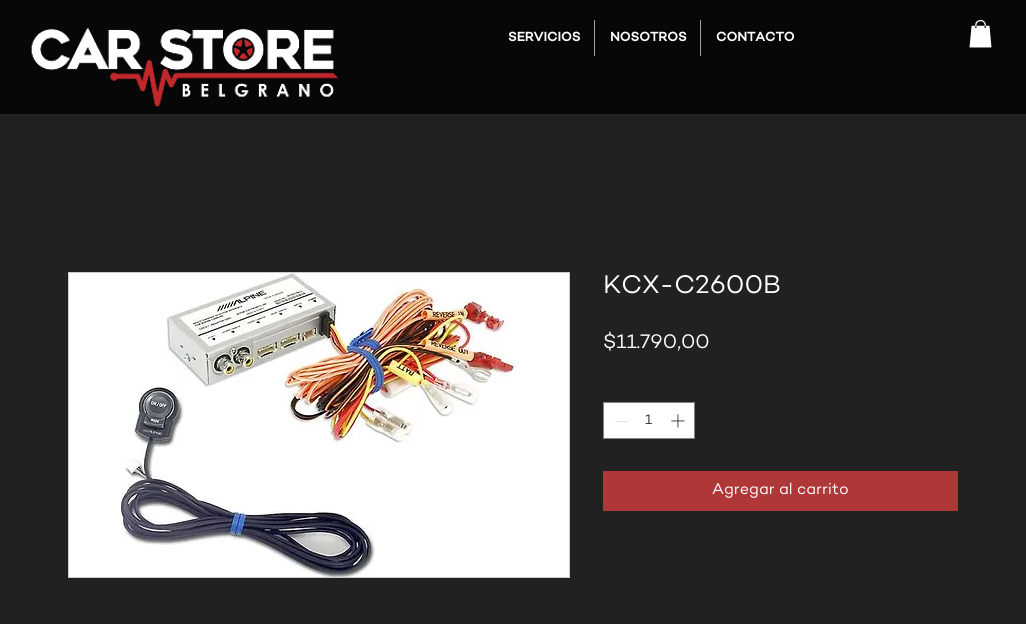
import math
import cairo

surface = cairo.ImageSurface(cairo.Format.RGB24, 1026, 624)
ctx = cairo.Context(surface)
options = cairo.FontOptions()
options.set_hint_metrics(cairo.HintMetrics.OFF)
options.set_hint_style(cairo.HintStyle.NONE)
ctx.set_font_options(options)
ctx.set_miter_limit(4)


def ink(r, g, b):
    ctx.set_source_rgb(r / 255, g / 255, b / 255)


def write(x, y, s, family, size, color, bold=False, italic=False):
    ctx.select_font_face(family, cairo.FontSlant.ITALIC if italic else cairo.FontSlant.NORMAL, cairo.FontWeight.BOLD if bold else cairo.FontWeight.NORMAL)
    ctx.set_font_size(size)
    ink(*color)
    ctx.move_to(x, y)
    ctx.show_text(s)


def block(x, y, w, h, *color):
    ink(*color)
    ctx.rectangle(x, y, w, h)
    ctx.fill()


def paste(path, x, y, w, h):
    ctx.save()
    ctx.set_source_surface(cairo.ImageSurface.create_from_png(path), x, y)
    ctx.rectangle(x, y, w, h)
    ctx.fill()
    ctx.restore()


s1 = dict(family="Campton", size=13, color=(255, 255, 255), bold=True)
s2 = dict(family="Campton", size=26, color=(255, 255, 255))
s3 = dict(family="Campton", size=20, color=(255, 255, 255))
s4 = dict(family="Campton", size=14, color=(47, 46, 46))
s5 = dict(family="Campton", size=16, color=(255, 255, 255))

ink(33, 33, 33)
ctx.paint()
block(0, 0, 1026, 114, 7, 7, 7)
paste("pic1.png", 31, 27, 308, 80)
write(508, 41, "SERVICIOS", **s1)
block(594, 20, 1, 36, 161, 161, 161)
write(610, 41, "NOSOTROS", **s1)
block(700, 20, 1, 36, 161, 161, 161)
write(716, 41, "CONTACTO", **s1)
paste("pic2.png", 969, 20, 23, 28)
ctx.rectangle(68.5, 272.5, 501, 305)
ink(209, 202, 201)
ctx.set_line_width(1)
ctx.stroke()
paste("pic3.png", 69, 273, 500, 304)
write(603, 293, "KCX-C2600B", **s2)
write(603, 348, "$11.790,00", **s3)
ctx.rectangle(603.5, 402.5, 91, 36)
ctx.fill_preserve()
ink(130, 130, 130)
ctx.stroke()
block(615, 421, 13, 1, 227, 227, 227)
write(645, 424, "1", **s4)
paste("pic4.png", 671, 414, 14, 14)
block(603, 471, 355, 40, 176, 55, 55)
write(712, 494, "Agregar al carrito", **s5)
surface.write_to_png("screenshot.png")
